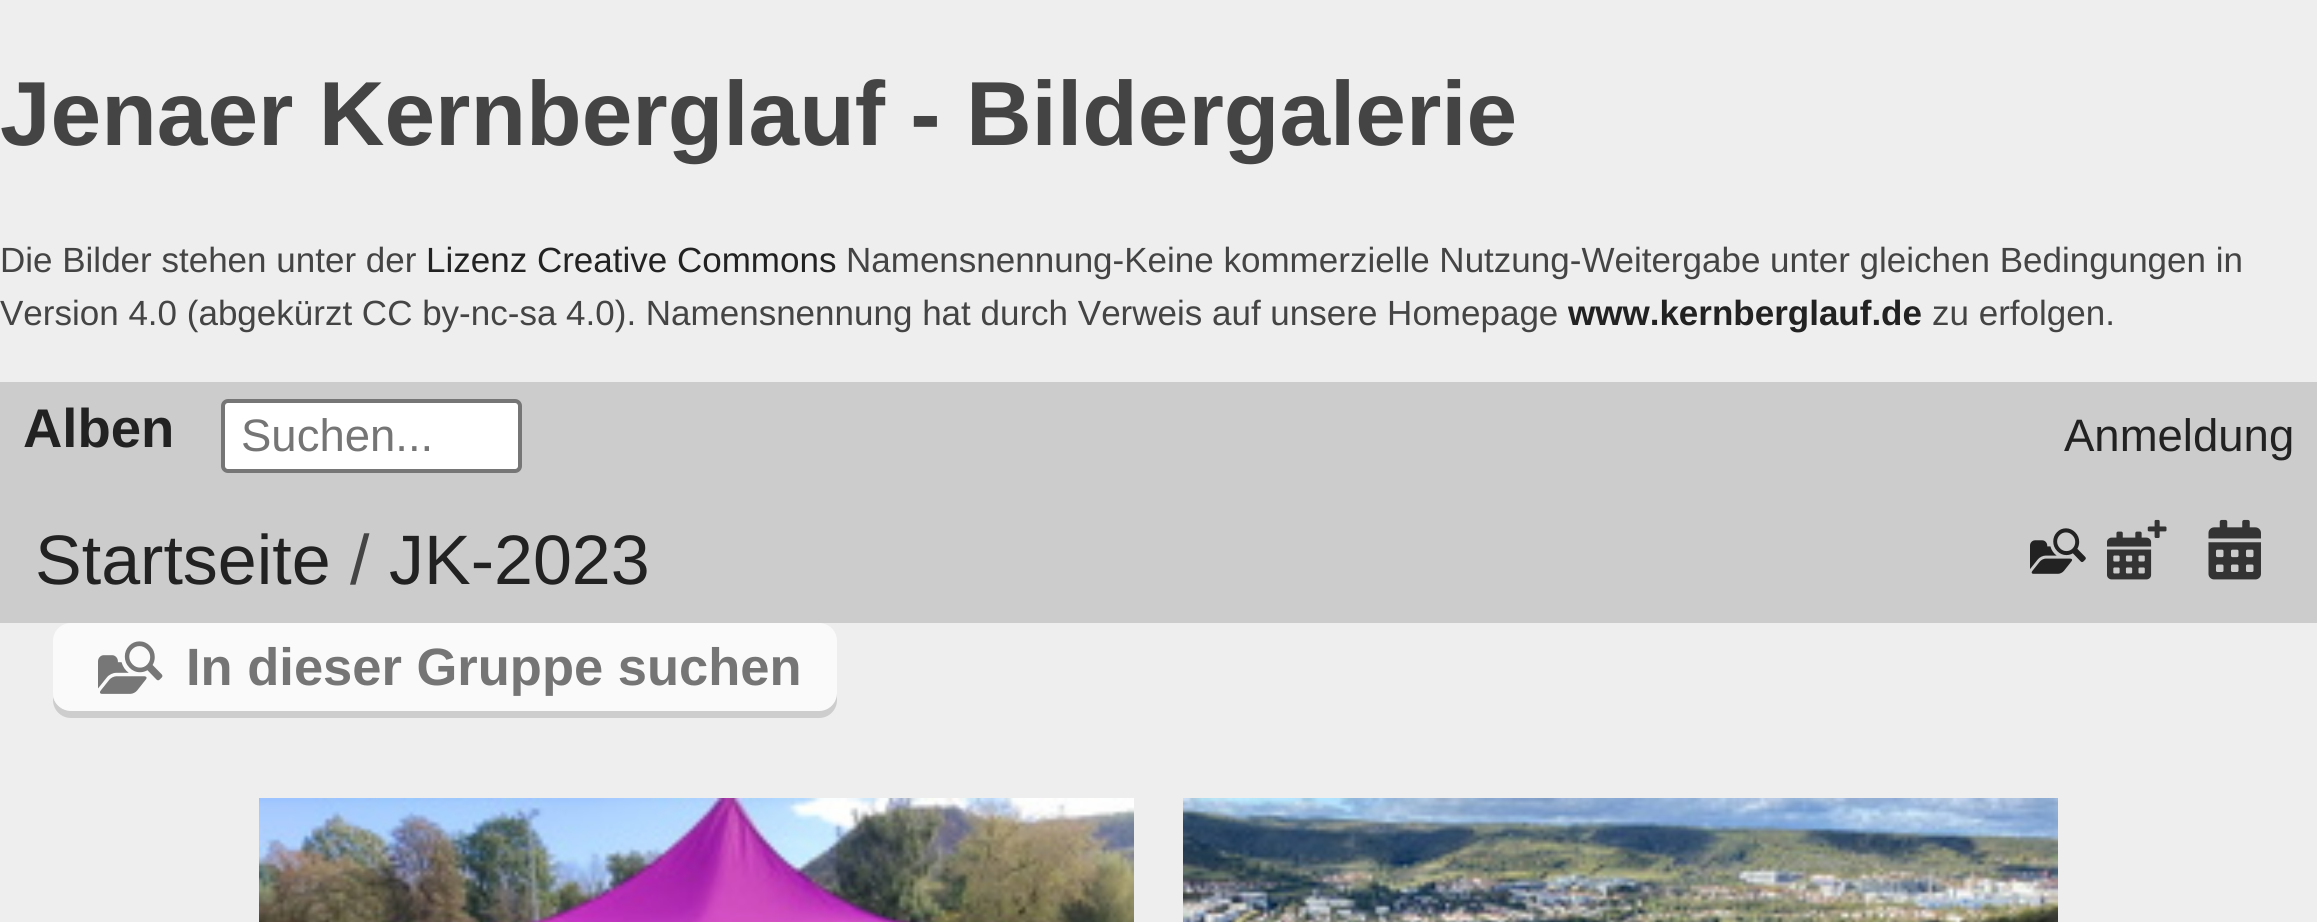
import math
import cairo

surface = cairo.ImageSurface(cairo.Format.RGB24, 2317, 922)
ctx = cairo.Context(surface)
options = cairo.FontOptions()
options.set_hint_metrics(cairo.HintMetrics.OFF)
options.set_hint_style(cairo.HintStyle.NONE)
ctx.set_font_options(options)
ctx.set_miter_limit(4)


def ink(r, g, b):
    ctx.set_source_rgb(r / 255, g / 255, b / 255)


def write(x, y, s, family, size, color, bold=False, italic=False):
    ctx.select_font_face(family, cairo.FontSlant.ITALIC if italic else cairo.FontSlant.NORMAL, cairo.FontWeight.BOLD if bold else cairo.FontWeight.NORMAL)
    ctx.set_font_size(size)
    ink(*color)
    ctx.move_to(x, y)
    ctx.show_text(s)


def block(x, y, w, h, *color):
    ink(*color)
    ctx.rectangle(x, y, w, h)
    ctx.fill()


def round_path(x, y, w, h, r):
    ctx.new_sub_path()
    for i, (u, v) in enumerate([(x + w - r, y + h - r), (x + r, y + h - r), (x + r, y + r), (x + w - r, y + r)]):
        ctx.arc(u, v, r, i * math.pi / 2, (i + 1) * math.pi / 2)
    ctx.close_path()


def paste(path, x, y, w, h):
    ctx.save()
    ctx.set_source_surface(cairo.ImageSurface.create_from_png(path), x, y)
    ctx.rectangle(x, y, w, h)
    ctx.fill()
    ctx.restore()


s1 = dict(family="Liberation Sans", size=91, color=(68, 68, 68), bold=True)
s2 = dict(family="Liberation Sans", size=35, color=(68, 68, 68))
s3 = dict(family="Liberation Sans", size=35, color=(34, 34, 34))
s4 = dict(family="Liberation Sans", size=35, color=(34, 34, 34), bold=True)
s5 = dict(family="Liberation Sans", size=54.5, color=(34, 34, 34), bold=True)
s6 = dict(family="Liberation Sans", size=45.5, color=(117, 117, 117))
s7 = dict(family="Liberation Sans", size=45.5, color=(34, 34, 34))
s8 = dict(family="Liberation Sans", size=70, color=(34, 34, 34))
s9 = dict(family="Liberation Sans", size=70, color=(68, 68, 68))
s10 = dict(family="Liberation Sans", size=52.5, color=(117, 117, 117), bold=True)

ink(238, 238, 238)
ctx.paint()
write(0, 145, "Jenaer Kernberglauf - Bildergalerie", **s1)
write(0, 272, "Die Bilder stehen unter der", **s2)
write(426, 272, "Lizenz Creative Commons", **s3)
write(846, 272, "Namensnennung-Keine kommerzielle Nutzung-Weitergabe unter gleichen Bedingungen in", **s2)
write(0, 325, "Version 4.0 (abgekürzt CC by-nc-sa 4.0). Namensnennung hat durch Verweis auf unsere Homepage", **s2)
write(1568, 325, "www.kernberglauf.de", **s4)
write(1932, 325, "zu erfolgen.", **s2)
block(0, 382, 2317, 241, 204, 204, 204)
write(23, 447, "Alben", **s5)
ink(255, 255, 255)
round_path(223, 401, 297, 70, 5)
ctx.fill_preserve()
ink(118, 118, 118)
ctx.set_line_width(4)
ctx.stroke()
write(241, 451, "Suchen...", **s6)
write(2064, 451, "Anmeldung", **s7)
write(35, 584, "Startseite", **s8)
write(350, 584, "/", **s9)
write(389, 584, "JK-2023", **s8)
paste("pic1.png", 2030, 528, 56, 46)
paste("pic2.png", 2107, 519, 60, 61)
paste("pic3.png", 2208, 519, 53, 61)
ink(205, 205, 205)
ctx.new_path()
ctx.move_to(53, 697)
ctx.line_to(53, 700)
ctx.curve_to(53, 710, 61, 718, 71, 718)
ctx.line_to(819, 718)
ctx.curve_to(829, 718, 837, 710, 837, 700)
ctx.line_to(837, 648)
ctx.line_to(836, 644)
ctx.line_to(836, 693)
ctx.curve_to(836, 703, 829, 710, 819, 710)
ctx.line_to(70, 710)
ctx.curve_to(62, 710, 55, 705, 53, 697)
ctx.close_path()
ctx.fill()
ink(250, 250, 250)
round_path(53, 623, 784, 88, 18)
ctx.fill()
paste("pic4.png", 98, 641, 65, 53)
write(186, 685, "In dieser Gruppe suchen", **s10)
paste("pic5.png", 259, 798, 875, 124)
paste("pic6.png", 1183, 798, 875, 124)
surface.write_to_png("screenshot.png")
